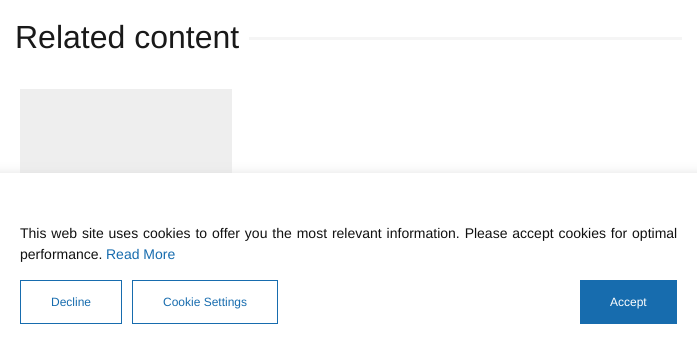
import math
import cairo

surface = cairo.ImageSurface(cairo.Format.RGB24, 697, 354)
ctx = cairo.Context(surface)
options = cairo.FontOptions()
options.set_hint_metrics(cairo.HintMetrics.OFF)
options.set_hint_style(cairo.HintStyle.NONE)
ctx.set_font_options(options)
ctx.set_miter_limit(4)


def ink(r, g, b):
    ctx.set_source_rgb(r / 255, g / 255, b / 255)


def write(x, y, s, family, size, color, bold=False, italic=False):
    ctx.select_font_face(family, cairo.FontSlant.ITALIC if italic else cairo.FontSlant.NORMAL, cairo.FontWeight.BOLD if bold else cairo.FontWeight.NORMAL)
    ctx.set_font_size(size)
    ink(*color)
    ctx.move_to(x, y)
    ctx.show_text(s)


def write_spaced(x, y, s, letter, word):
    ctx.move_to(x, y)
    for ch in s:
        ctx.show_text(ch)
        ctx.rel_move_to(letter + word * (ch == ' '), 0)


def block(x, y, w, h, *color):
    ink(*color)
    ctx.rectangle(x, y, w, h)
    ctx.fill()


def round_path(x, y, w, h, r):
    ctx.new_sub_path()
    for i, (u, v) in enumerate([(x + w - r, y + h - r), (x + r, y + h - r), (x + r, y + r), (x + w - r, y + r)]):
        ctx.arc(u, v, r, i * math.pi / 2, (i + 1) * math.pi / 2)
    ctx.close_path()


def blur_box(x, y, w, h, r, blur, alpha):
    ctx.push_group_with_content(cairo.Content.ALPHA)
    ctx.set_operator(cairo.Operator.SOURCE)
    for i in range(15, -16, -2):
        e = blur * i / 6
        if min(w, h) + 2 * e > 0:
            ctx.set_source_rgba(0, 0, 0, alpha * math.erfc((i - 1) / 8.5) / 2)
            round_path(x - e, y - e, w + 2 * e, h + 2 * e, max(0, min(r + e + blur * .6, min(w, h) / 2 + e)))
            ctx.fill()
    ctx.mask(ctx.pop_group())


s1 = dict(family="Liberation Sans", size=32, color=(25, 25, 25))
s2 = dict(family="Liberation Sans", size=14, color=(17, 17, 17))
s3 = dict(family="Liberation Sans", size=14, color=(23, 108, 174))
s4 = dict(family="Liberation Sans", size=12, color=(23, 108, 174))
s5 = dict(family="Liberation Sans", size=12, color=(255, 255, 255))

ink(255, 255, 255)
ctx.paint()
write(15, 48, "Related content", **s1)
block(249, 37, 433, 3, 245, 245, 245)
block(20, 89, 212, 84, 238, 238, 238)
ink(221, 221, 221)
blur_box(-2, 174, 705, 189, 0, 5.5, 1)
block(0, 173, 697, 181, 255, 255, 255)
ctx.set_font_size(14)
ink(17, 17, 17)
write_spaced(20, 238, "This web site uses cookies to offer you the most relevant information. Please accept cookies for optimal", 0, 1)
write(20, 259, "performance.", **s2)
write(106, 259, "Read More", **s3)
ctx.rectangle(20.5, 280.5, 101, 43)
ctx.set_line_width(1)
ctx.stroke()
write(51, 306, "Decline", **s4)
ctx.rectangle(132.5, 280.5, 145, 43)
ctx.stroke()
write(163, 306, "Cookie Settings", **s4)
block(580, 280, 97, 44, 23, 108, 174)
write(610, 306, "Accept", **s5)
surface.write_to_png("screenshot.png")
